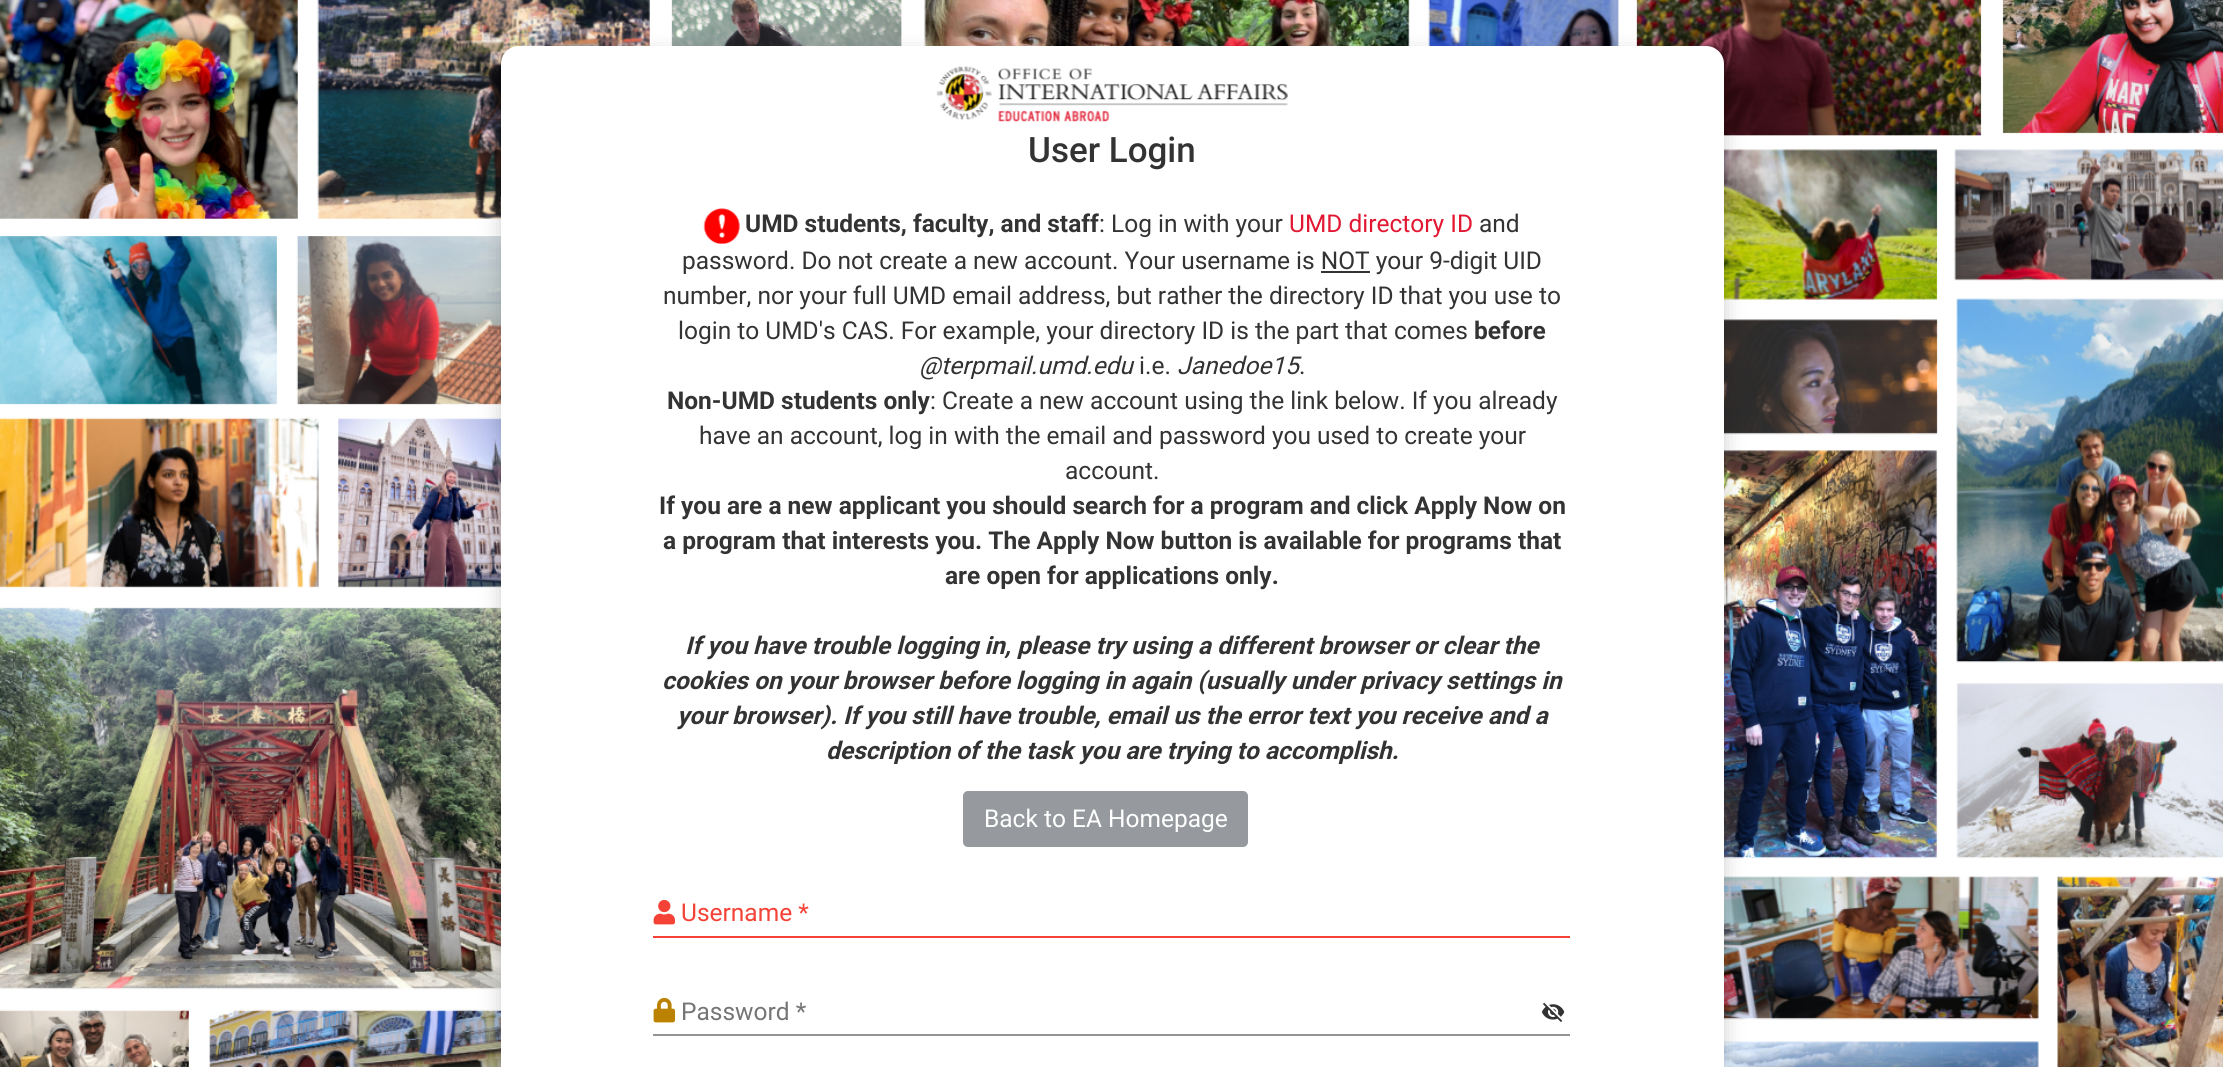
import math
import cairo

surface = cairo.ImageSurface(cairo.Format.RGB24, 2223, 1067)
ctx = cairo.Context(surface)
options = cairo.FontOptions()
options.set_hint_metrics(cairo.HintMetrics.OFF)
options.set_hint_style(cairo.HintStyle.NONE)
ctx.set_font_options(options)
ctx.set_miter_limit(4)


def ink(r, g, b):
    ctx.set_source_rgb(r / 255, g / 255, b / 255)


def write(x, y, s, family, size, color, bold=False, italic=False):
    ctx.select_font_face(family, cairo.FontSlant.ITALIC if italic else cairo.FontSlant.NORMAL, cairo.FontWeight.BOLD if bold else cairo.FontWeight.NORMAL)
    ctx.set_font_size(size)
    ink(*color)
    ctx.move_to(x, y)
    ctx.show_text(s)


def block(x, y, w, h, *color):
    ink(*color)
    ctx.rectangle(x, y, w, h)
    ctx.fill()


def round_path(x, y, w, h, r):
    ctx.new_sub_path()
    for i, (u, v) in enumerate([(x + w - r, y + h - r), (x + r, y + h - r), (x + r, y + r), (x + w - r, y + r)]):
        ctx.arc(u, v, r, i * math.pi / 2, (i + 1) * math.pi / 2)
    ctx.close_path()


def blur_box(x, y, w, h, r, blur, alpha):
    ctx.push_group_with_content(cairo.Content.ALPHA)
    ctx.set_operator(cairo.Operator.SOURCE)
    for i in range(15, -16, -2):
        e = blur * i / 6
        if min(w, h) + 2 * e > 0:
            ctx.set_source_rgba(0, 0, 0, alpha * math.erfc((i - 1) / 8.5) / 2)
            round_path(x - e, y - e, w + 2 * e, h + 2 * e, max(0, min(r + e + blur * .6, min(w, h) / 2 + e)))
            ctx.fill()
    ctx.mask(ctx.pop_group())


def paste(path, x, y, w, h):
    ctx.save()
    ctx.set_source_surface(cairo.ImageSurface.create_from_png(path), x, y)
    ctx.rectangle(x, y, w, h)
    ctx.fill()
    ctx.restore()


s1 = dict(family="Roboto Medium", size=35, color=(51, 51, 51))
s2 = dict(family="Roboto", size=24.5, color=(51, 51, 51), bold=True)
s3 = dict(family="Roboto", size=24.5, color=(51, 51, 51))
s4 = dict(family="Roboto", size=24.5, color=(226, 24, 51))
s5 = dict(family="Roboto", size=24.5, color=(51, 51, 51), italic=True)
s6 = dict(family="Roboto", size=24.5, color=(51, 51, 51), bold=True, italic=True)
s7 = dict(family="Roboto", size=24.5, color=(255, 255, 255))
s8 = dict(family="Roboto", size=24.5, color=(244, 67, 54))
s9 = dict(family="Roboto", size=24.5, color=(117, 117, 117))

ink(255, 255, 255)
ctx.paint()
paste("pic1.png", 0, 0, 2223, 1067)
ink(0, 0, 0)
blur_box(501, 54, 1223, 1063, 18, 10.5, 0.2)
ink(255, 255, 255)
round_path(501, 46, 1223, 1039, 18)
ctx.fill()
paste("pic2.png", 936, 66, 352, 56)
write(1028, 162, "User Login", **s1)
paste("pic3.png", 703, 208, 37, 36)
write(745, 232, "UMD students, faculty, and staff", **s2)
write(1099, 232, ": Log in with your", **s3)
write(1289, 232, "UMD directory ID", **s4)
write(1479, 232, "and", **s3)
write(682, 269, "password. Do not create a new account. Your username is NOT your 9-digit UID", **s3)
block(1321, 271, 49, 2, 51, 51, 51)
write(663, 304, "number, nor your full UMD email address, but rather the directory ID that you use to", **s3)
write(678, 339, "login to UMD's CAS. For example, your directory ID is the part that comes", **s3)
write(1474, 339, "before", **s2)
write(919, 374, "@terpmail.umd.edu", **s5)
write(1139, 374, "i.e.", **s3)
write(1177, 374, "Janedoe15", **s5)
write(1299, 374, ".", **s3)
write(667, 409, "Non-UMD students only", **s2)
write(930, 409, ": Create a new account using the link below. If you already", **s3)
write(699, 444, "have an account, log in with the email and password you used to create your", **s3)
write(1065, 479, "account.", **s3)
write(659, 514, "If you are a new applicant you should search for a program and click Apply Now on", **s2)
write(663, 549, "a program that interests you. The Apply Now button is available for programs that", **s2)
write(945, 584, "are open for applications only.", **s2)
write(685, 654, "If you have trouble logging in, please try using a different browser or clear the", **s6)
write(662, 689, "cookies on your browser before logging in again (usually under privacy settings in", **s6)
write(677, 724, "your browser). If you still have trouble, email us the error text you receive and a", **s6)
write(826, 759, "description of the task you are trying to accomplish.", **s6)
ink(150, 154, 158)
round_path(962, 790, 287, 58, 6)
ctx.fill_preserve()
ink(255, 255, 255)
ctx.stroke()
write(984, 827, "Back to EA Homepage", **s7)
paste("pic4.png", 653, 900, 23, 25)
write(681, 921, "Username *", **s8)
block(653, 936, 917, 2, 244, 67, 54)
paste("pic5.png", 653, 998, 23, 25)
write(681, 1020, "Password *", **s9)
paste("pic6.png", 1541, 1002, 24, 20)
block(653, 1034, 917, 2, 148, 148, 148)
surface.write_to_png("screenshot.png")
